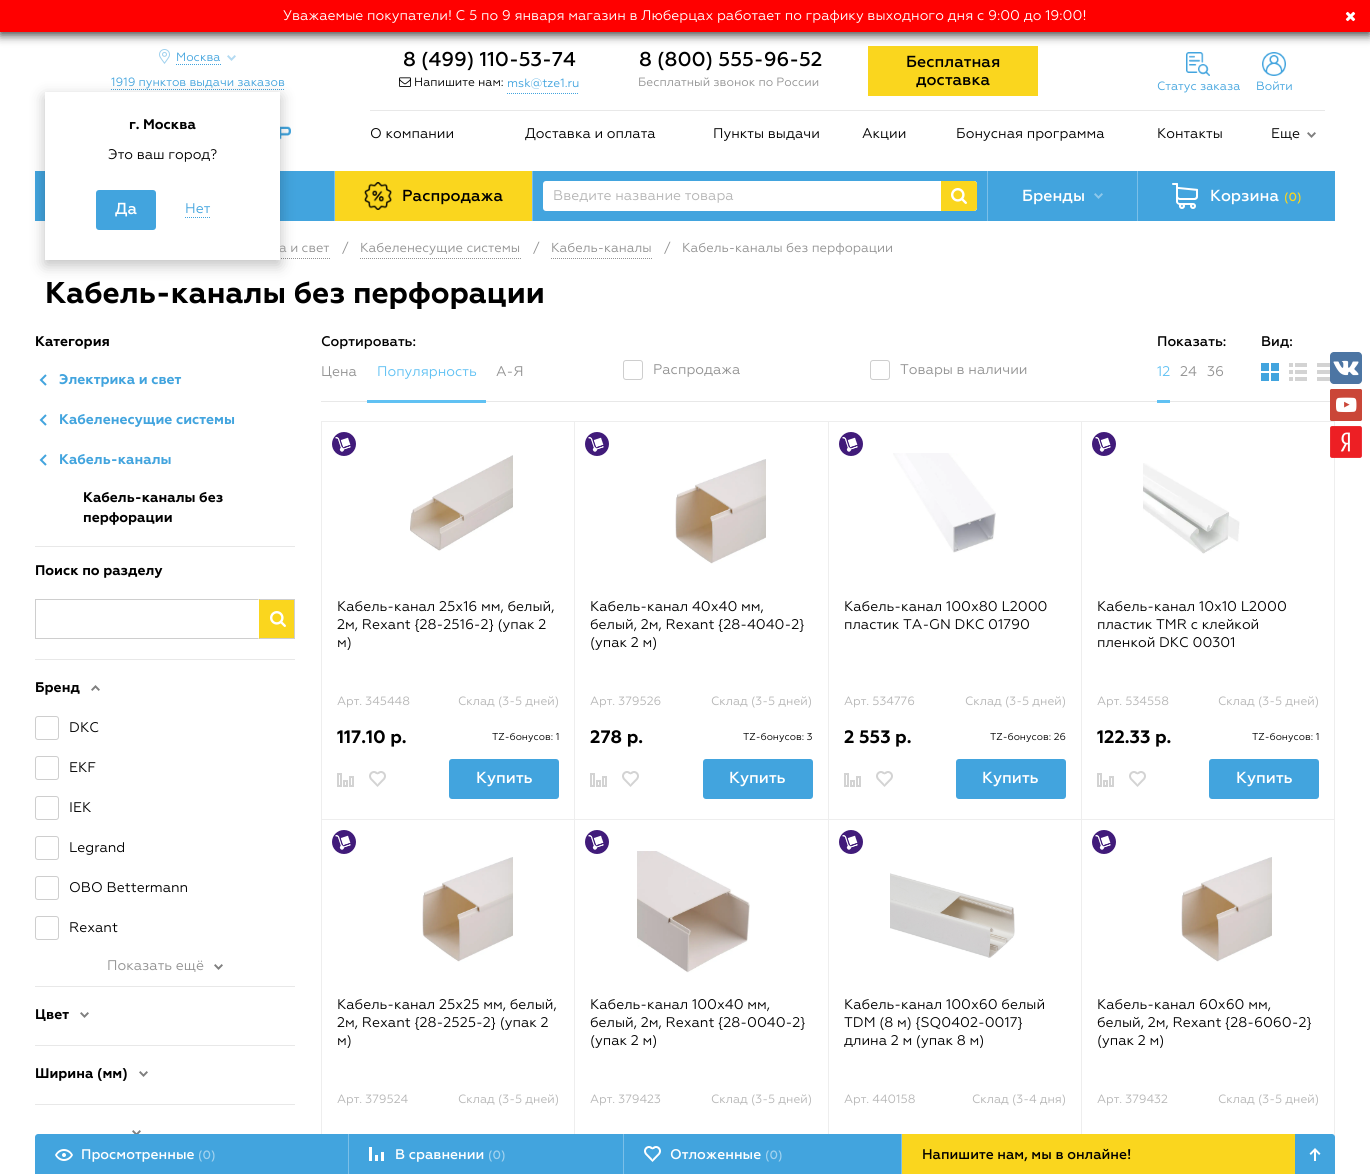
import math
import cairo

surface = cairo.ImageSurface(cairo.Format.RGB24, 1370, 1174)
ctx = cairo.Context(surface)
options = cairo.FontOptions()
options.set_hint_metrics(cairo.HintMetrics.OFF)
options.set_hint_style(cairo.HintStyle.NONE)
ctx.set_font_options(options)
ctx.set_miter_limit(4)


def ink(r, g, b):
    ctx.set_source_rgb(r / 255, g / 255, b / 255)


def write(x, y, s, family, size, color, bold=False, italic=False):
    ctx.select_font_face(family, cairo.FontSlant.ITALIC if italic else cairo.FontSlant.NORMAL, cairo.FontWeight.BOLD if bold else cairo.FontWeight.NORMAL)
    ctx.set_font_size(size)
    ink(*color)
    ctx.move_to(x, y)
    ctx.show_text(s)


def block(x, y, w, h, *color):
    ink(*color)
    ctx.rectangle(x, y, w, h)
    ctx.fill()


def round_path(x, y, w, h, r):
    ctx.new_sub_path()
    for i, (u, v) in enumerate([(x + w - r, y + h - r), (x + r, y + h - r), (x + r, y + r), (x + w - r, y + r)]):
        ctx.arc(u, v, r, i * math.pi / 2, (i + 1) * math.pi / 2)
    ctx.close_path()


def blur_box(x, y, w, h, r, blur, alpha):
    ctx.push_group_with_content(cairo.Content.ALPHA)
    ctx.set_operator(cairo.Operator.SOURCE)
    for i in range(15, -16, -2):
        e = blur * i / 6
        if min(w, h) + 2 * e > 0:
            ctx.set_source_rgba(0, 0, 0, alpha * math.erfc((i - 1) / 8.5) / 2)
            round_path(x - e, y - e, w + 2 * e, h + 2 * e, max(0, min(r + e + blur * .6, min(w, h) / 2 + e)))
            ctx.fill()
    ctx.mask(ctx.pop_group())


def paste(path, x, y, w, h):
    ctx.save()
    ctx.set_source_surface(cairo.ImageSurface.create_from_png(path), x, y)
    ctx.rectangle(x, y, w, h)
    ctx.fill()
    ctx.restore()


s1 = dict(family="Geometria", size=14, color=(255, 255, 255))
s2 = dict(family="Geometria", size=12, color=(66, 164, 222))
s3 = dict(family="Geometria", size=13, color=(146, 146, 146))
s4 = dict(family="Geometria", size=14, color=(0, 0, 0), bold=True)
s5 = dict(family="Geometria", size=14, color=(0, 0, 0))
s6 = dict(family="Geometria Medium", size=16, color=(255, 255, 255))
s7 = dict(family="Geometria", size=14, color=(66, 164, 222))
s8 = dict(family="Geometria Medium", size=20, color=(0, 0, 0))
s9 = dict(family="Geometria", size=12, color=(0, 0, 0))
s10 = dict(family="Geometria", size=12, color=(146, 146, 146))
s11 = dict(family="Geometria Medium", size=16, color=(0, 0, 0))
s12 = dict(family="Geometria", size=14, color=(181, 181, 181))
s13 = dict(family="Geometria Medium", size=12, color=(250, 214, 30))
s14 = dict(family="Geometria", size=30, color=(0, 0, 0), bold=True)
s15 = dict(family="Geometria", size=14, color=(66, 164, 222), bold=True)
s16 = dict(family="Geometria", size=14, color=(146, 146, 146))
s17 = dict(family="Geometria Medium", size=14, color=(0, 0, 0))
s18 = dict(family="Geometria", size=14, color=(96, 193, 243))
s19 = dict(family="Geometria", size=12, color=(181, 181, 181))
s20 = dict(family="Geometria", size=18, color=(0, 0, 0), bold=True)
s21 = dict(family="Geometria", size=10, color=(0, 0, 0))
s22 = dict(family="Geometria Medium", size=14, color=(255, 255, 255))
s23 = dict(family="Geometria Medium", size=12, color=(161, 210, 239))

ink(255, 255, 255)
ctx.paint()
paste("pic2.png", 159, 49, 11, 15)
block(868, 46, 170, 50, 250, 214, 30)
ink(0, 0, 0)
blur_box(0, 3, 1370, 32, 0, 5, 0.75)
block(0, 0, 1370, 32, 255, 0, 0)
write(283, 20, "Уважаемые покупатели! С 5 по 9 января магазин в Люберцах работает по графику выходного дня с 9:00 до 19:00!", **s1)
paste("pic1.png", 1345, 11, 11, 11)
write(176, 61, "Москва", **s2)
ctx.new_path()
ctx.move_to(176, 64.5)
ctx.line_to(221, 64.5)
ctx.set_line_width(1)
ctx.set_dash([1, 1])
ctx.stroke()
paste("pic3.png", 227, 55, 9, 6)
write(111, 86, "1919 пунктов выдачи заказов", **s2)
ctx.new_path()
ctx.move_to(111, 89.5)
ctx.line_to(284, 89.5)
ctx.stroke()
paste("pic4.png", 280, 126, 11, 14)
block(35, 171, 299, 50, 66, 164, 222)
ctx.new_path()
ctx.move_to(219, 258.5)
ctx.line_to(330, 258.5)
ink(146, 146, 146)
ctx.stroke()
ink(0, 0, 0)
blur_box(45, 97, 235, 168, 0, 7.5, 0.25)
write(279, 252, "а и свет", **s3)
block(45, 92, 235, 168, 255, 255, 255)
write(129, 129, "г. Москва", **s4)
write(108, 159, "Это ваш город?", **s5)
ink(66, 164, 222)
round_path(96, 190, 60, 40, 3)
ctx.fill()
write(115, 214, "Да", **s6)
write(185, 213, "Нет", **s7)
ctx.new_path()
ctx.move_to(185, 217.5)
ctx.line_to(210, 217.5)
ctx.stroke()
block(370, 110, 955, 1, 232, 232, 232)
write(403, 66, "8 (499) 110-53-74", **s8)
paste("pic5.png", 399, 77, 12, 10)
write(414, 86, "Напишите нам:", **s9)
ctx.new_path()
ctx.move_to(507, 93.5)
ctx.line_to(579, 93.5)
ink(66, 164, 222)
ctx.stroke()
write(507, 87, "msk@tze1.ru", **s2)
write(639, 66, "8 (800) 555-96-52", **s8)
write(638, 86, "Бесплатный звонок по России", **s10)
write(906, 67, "Бесплатная", **s11)
write(916, 85, "доставка", **s11)
paste("pic6.png", 1186, 52, 24, 24)
write(1157, 90, "Статус заказа", **s2)
paste("pic7.png", 1262, 52, 24, 24)
write(1256, 90, "Войти", **s2)
write(370, 138, "О компании", **s5)
write(525, 138, "Доставка и оплата", **s5)
write(713, 138, "Пункты выдачи", **s5)
write(862, 138, "Акции", **s5)
write(956, 138, "Бонусная программа", **s5)
write(1157, 138, "Контакты", **s5)
write(1271, 138, "Еще", **s5)
paste("pic8.png", 1307, 132, 9, 6)
block(334, 171, 1, 50, 123, 191, 232)
block(335, 171, 197, 50, 250, 214, 30)
paste("pic9.png", 364, 182, 28, 28)
write(402, 201, "Распродажа", **s11)
block(533, 171, 454, 50, 66, 164, 222)
block(532, 171, 1, 50, 123, 191, 232)
ink(255, 255, 255)
round_path(543, 181, 434, 30, 3)
ctx.fill()
write(553, 200, "Введите название товара", **s12)
ink(250, 214, 30)
ctx.new_path()
ctx.move_to(941, 181)
ctx.line_to(974, 181)
ctx.curve_to(975.5, 181, 977, 182.5, 977, 184)
ctx.line_to(977, 208)
ctx.curve_to(977, 209.5, 975.5, 211, 974, 211)
ctx.line_to(941, 211)
ctx.close_path()
ctx.fill()
paste("pic10.png", 951, 188, 16, 16)
block(988, 171, 149, 50, 66, 164, 222)
block(987, 171, 1, 50, 123, 191, 232)
write(1022, 201, "Бренды", **s6)
paste("pic11.png", 1094, 193, 9, 6)
block(1138, 171, 197, 50, 66, 164, 222)
block(1137, 171, 1, 50, 123, 191, 232)
paste("pic12.png", 1172, 183, 26, 26)
write(1210, 201, "Корзина", **s6)
write(1284, 201, "(0)", **s13)
write(342, 252, "/", **s3)
ctx.new_path()
ctx.move_to(360, 258.5)
ctx.line_to(521, 258.5)
ctx.stroke()
write(360, 252, "Кабеленесущие системы", **s3)
write(533, 252, "/", **s3)
ctx.new_path()
ctx.move_to(551, 258.5)
ctx.line_to(652, 258.5)
ctx.stroke()
write(551, 252, "Кабель-каналы", **s3)
write(664, 252, "/", **s3)
write(682, 252, "Кабель-каналы без перфорации", **s3)
write(45, 303, "Кабель-каналы без перфорации", **s14)
block(35, 546, 260, 1, 232, 232, 232)
write(35, 346, "Категория", **s4)
paste("pic13.png", 39, 374, 8, 12)
write(59, 384, "Электрика и свет", **s15)
paste("pic13.png", 39, 414, 8, 12)
write(59, 424, "Кабеленесущие системы", **s15)
paste("pic13.png", 39, 454, 8, 12)
write(59, 464, "Кабель-каналы", **s15)
write(83, 502, "Кабель-каналы без", **s4)
write(83, 522, "перфорации", **s4)
block(35, 659, 260, 1, 232, 232, 232)
write(35, 575, "Поиск по разделу", **s4)
ink(206, 206, 206)
ctx.new_path()
ctx.move_to(35, 599)
ctx.line_to(259, 599)
ctx.line_to(258, 600)
ctx.line_to(36, 600)
ctx.close_path()
ctx.fill()
ctx.new_path()
ctx.move_to(259, 639)
ctx.line_to(35, 639)
ctx.line_to(36, 638)
ctx.line_to(258, 638)
ctx.close_path()
ctx.fill()
block(35, 599, 1, 40, 206, 206, 206)
block(259, 599, 35, 40, 250, 214, 30)
paste("pic10.png", 270, 611, 16, 16)
ink(206, 206, 206)
ctx.new_path()
ctx.move_to(259, 599)
ctx.line_to(295, 599)
ctx.line_to(294, 600)
ctx.line_to(260, 600)
ctx.close_path()
ctx.fill()
block(294, 599, 1, 40, 206, 206, 206)
ctx.new_path()
ctx.move_to(295, 639)
ctx.line_to(259, 639)
ctx.line_to(260, 638)
ctx.line_to(294, 638)
ctx.close_path()
ctx.fill()
block(35, 986, 260, 1, 232, 232, 232)
write(35, 692, "Бренд", **s4)
paste("pic14.png", 91, 685, 9, 6)
round_path(35.5, 716.5, 23, 23, 2.5)
ink(206, 206, 206)
ctx.set_dash([])
ctx.stroke()
write(69, 732, "DKC", **s5)
round_path(35.5, 756.5, 23, 23, 2.5)
ink(206, 206, 206)
ctx.stroke()
write(69, 772, "EKF", **s5)
round_path(35.5, 796.5, 23, 23, 2.5)
ink(206, 206, 206)
ctx.stroke()
write(69, 812, "IEK", **s5)
round_path(35.5, 836.5, 23, 23, 2.5)
ink(206, 206, 206)
ctx.stroke()
write(69, 852, "Legrand", **s5)
round_path(35.5, 876.5, 23, 23, 2.5)
ink(206, 206, 206)
ctx.stroke()
write(69, 892, "OBO Bettermann", **s5)
round_path(35.5, 916.5, 23, 23, 2.5)
ink(206, 206, 206)
ctx.stroke()
write(69, 932, "Rexant", **s5)
write(107, 970, "Показать ещё", **s16)
paste("pic8.png", 214, 964, 9, 6)
block(35, 1045, 260, 1, 232, 232, 232)
write(35, 1019, "Цвет", **s4)
paste("pic8.png", 80, 1012, 9, 6)
block(35, 1104, 260, 1, 232, 232, 232)
write(35, 1078, "Ширина (мм)", **s4)
paste("pic8.png", 139, 1071, 9, 6)
paste("pic15.png", 132, 1130, 9, 4)
block(321, 401, 1014, 1, 232, 232, 232)
write(321, 346, "Сортировать:", **s17)
write(321, 376, "Цена", **s16)
write(377, 376, "Популярность", **s18)
block(367, 400, 119, 3, 96, 193, 243)
write(496, 376, "А-Я", **s16)
round_path(623.5, 360.5, 19, 19, 2.5)
ink(206, 206, 206)
ctx.stroke()
write(653, 374, "Распродажа", **s16)
round_path(870.5, 360.5, 19, 19, 2.5)
ink(206, 206, 206)
ctx.stroke()
write(900, 374, "Товары в наличии", **s16)
write(1157, 346, "Показать:", **s17)
write(1157, 376, "12", **s18)
block(1157, 400, 13, 3, 96, 193, 243)
write(1180, 376, "24", **s16)
write(1207, 376, "36", **s16)
write(1261, 346, "Вид:", **s17)
paste("pic16.png", 1261, 363, 18, 18)
paste("pic17.png", 1289, 363, 18, 18)
paste("pic18.png", 1317, 363, 14, 18)
ctx.rectangle(321.5, 421.5, 253, 398)
ink(238, 238, 238)
ctx.stroke()
ink(65, 27, 122)
ctx.arc(344, 444, 12, 0, 2 * math.pi)
ctx.fill()
paste("pic19.png", 335, 437, 16, 15)
paste("pic20.png", 410, 455, 103, 96)
write(337, 611, "Кабель-канал 25х16 мм, белый,", **s5)
write(337, 629, "2м, Rexant {28-2516-2} (упак 2", **s5)
write(337, 647, "м)", **s5)
write(337, 705, "Арт. 345448", **s19)
write(458, 705, "Склад (3-5 дней)", **s19)
write(337, 743, "117.10 р.", **s20)
write(492, 740, "TZ-бонусов: 1", **s21)
paste("pic21.png", 337, 773, 17, 14)
paste("pic22.png", 369, 771, 17, 16)
ink(66, 164, 222)
round_path(449, 759, 110, 40, 3)
ctx.fill()
write(476, 783, "Купить", **s6)
ctx.rectangle(574.5, 421.5, 254, 398)
ink(238, 238, 238)
ctx.stroke()
ink(65, 27, 122)
ctx.arc(597, 444, 12, 0, 2 * math.pi)
ctx.fill()
paste("pic19.png", 588, 437, 16, 15)
paste("pic23.png", 675, 459, 91, 105)
write(590, 611, "Кабель-канал 40х40 мм,", **s5)
write(590, 629, "белый, 2м, Rexant {28-4040-2}", **s5)
write(590, 647, "(упак 2 м)", **s5)
write(590, 705, "Арт. 379526", **s19)
write(711, 705, "Склад (3-5 дней)", **s19)
write(590, 743, "278 р.", **s20)
write(743, 740, "TZ-бонусов: 3", **s21)
paste("pic21.png", 590, 773, 17, 14)
paste("pic22.png", 622, 771, 17, 16)
ink(66, 164, 222)
round_path(703, 759, 110, 40, 3)
ctx.fill()
write(729, 783, "Купить", **s6)
ctx.rectangle(828.5, 421.5, 253, 398)
ink(238, 238, 238)
ctx.stroke()
ink(65, 27, 122)
ctx.arc(851, 444, 12, 0, 2 * math.pi)
ctx.fill()
paste("pic19.png", 842, 437, 16, 15)
paste("pic24.png", 893, 453, 103, 100)
write(844, 611, "Кабель-канал 100х80 L2000", **s5)
write(844, 629, "пластик TA-GN DKC 01790", **s5)
write(844, 705, "Арт. 534776", **s19)
write(965, 705, "Склад (3-5 дней)", **s19)
write(844, 743, "2 553 р.", **s20)
write(990, 740, "TZ-бонусов: 26", **s21)
paste("pic21.png", 844, 773, 17, 14)
paste("pic22.png", 876, 771, 17, 16)
ink(66, 164, 222)
round_path(956, 759, 110, 40, 3)
ctx.fill()
write(982, 783, "Купить", **s6)
ctx.rectangle(1081.5, 421.5, 253, 398)
ink(238, 238, 238)
ctx.stroke()
ink(65, 27, 122)
ctx.arc(1104, 444, 12, 0, 2 * math.pi)
ctx.fill()
paste("pic19.png", 1095, 437, 16, 15)
paste("pic25.png", 1143, 463, 97, 91)
write(1097, 611, "Кабель-канал 10х10 L2000", **s5)
write(1097, 629, "пластик TMR с клейкой", **s5)
write(1097, 647, "пленкой DKC 00301", **s5)
write(1097, 705, "Арт. 534558", **s19)
write(1218, 705, "Склад (3-5 дней)", **s19)
write(1097, 743, "122.33 р.", **s20)
write(1252, 740, "TZ-бонусов: 1", **s21)
paste("pic21.png", 1097, 773, 17, 14)
paste("pic22.png", 1129, 771, 17, 16)
ink(66, 164, 222)
round_path(1209, 759, 110, 40, 3)
ctx.fill()
write(1236, 783, "Купить", **s6)
ctx.rectangle(321.5, 819.5, 253, 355)
ink(238, 238, 238)
ctx.stroke()
ink(65, 27, 122)
ctx.arc(344, 842, 12, 0, 2 * math.pi)
ctx.fill()
paste("pic19.png", 335, 835, 16, 15)
paste("pic23.png", 422, 857, 91, 105)
write(337, 1009, "Кабель-канал 25х25 мм, белый,", **s5)
write(337, 1027, "2м, Rexant {28-2525-2} (упак 2", **s5)
write(337, 1045, "м)", **s5)
write(337, 1103, "Арт. 379524", **s19)
write(458, 1103, "Склад (3-5 дней)", **s19)
ctx.rectangle(574.5, 819.5, 254, 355)
ink(238, 238, 238)
ctx.stroke()
ink(65, 27, 122)
ctx.arc(597, 842, 12, 0, 2 * math.pi)
ctx.fill()
paste("pic19.png", 588, 835, 16, 15)
paste("pic26.png", 637, 851, 113, 122)
write(590, 1009, "Кабель-канал 100х40 мм,", **s5)
write(590, 1027, "белый, 2м, Rexant {28-0040-2}", **s5)
write(590, 1045, "(упак 2 м)", **s5)
write(590, 1103, "Арт. 379423", **s19)
write(711, 1103, "Склад (3-5 дней)", **s19)
ctx.rectangle(828.5, 819.5, 253, 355)
ink(238, 238, 238)
ctx.stroke()
ink(65, 27, 122)
ctx.arc(851, 842, 12, 0, 2 * math.pi)
ctx.fill()
paste("pic19.png", 842, 835, 16, 15)
paste("pic27.png", 890, 873, 125, 85)
write(844, 1009, "Кабель-канал 100х60 белый", **s5)
write(844, 1027, "TDM (8 м) {SQ0402-0017}", **s5)
ctx.save()
ctx.rectangle(844, 996, 222, 89)
ctx.clip()
write(844, 1045, "длина 2 м (упак 8 м)", **s5)
ctx.restore()
write(844, 1103, "Арт. 440158", **s19)
write(972, 1103, "Склад (3-4 дня)", **s19)
ctx.rectangle(1081.5, 819.5, 253, 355)
ink(238, 238, 238)
ctx.stroke()
ink(65, 27, 122)
ctx.arc(1104, 842, 12, 0, 2 * math.pi)
ctx.fill()
paste("pic19.png", 1095, 835, 16, 15)
paste("pic23.png", 1181, 857, 91, 105)
write(1097, 1009, "Кабель-канал 60х60 мм,", **s5)
write(1097, 1027, "белый, 2м, Rexant {28-6060-2}", **s5)
write(1097, 1045, "(упак 2 м)", **s5)
write(1097, 1103, "Арт. 379432", **s19)
write(1218, 1103, "Склад (3-5 дней)", **s19)
paste("pic28.png", 1330, 352, 32, 32)
paste("pic29.png", 1330, 389, 32, 32)
paste("pic30.png", 1330, 426, 32, 32)
ink(66, 164, 222)
ctx.new_path()
ctx.move_to(38, 1134)
ctx.line_to(348, 1134)
ctx.line_to(348, 1174)
ctx.line_to(35, 1174)
ctx.line_to(35, 1137)
ctx.curve_to(35, 1135.5, 36.5, 1134, 38, 1134)
ctx.close_path()
ctx.fill()
paste("pic31.png", 55, 1149, 18, 12)
write(81, 1159, "Просмотренные", **s22)
write(198, 1159, "(0)", **s23)
block(348, 1134, 1, 40, 123, 191, 232)
block(349, 1134, 274, 40, 66, 164, 222)
paste("pic32.png", 369, 1147, 15, 14)
write(395, 1159, "В сравнении", **s22)
write(488, 1159, "(0)", **s23)
block(623, 1134, 1, 40, 123, 191, 232)
block(624, 1134, 277, 40, 66, 164, 222)
paste("pic33.png", 644, 1146, 17, 16)
write(670, 1159, "Отложенные", **s22)
write(765, 1159, "(0)", **s23)
block(901, 1134, 1, 40, 123, 191, 232)
block(902, 1134, 393, 40, 250, 214, 30)
write(922, 1159, "Напишите нам, мы в онлайне!", **s17)
ink(66, 164, 222)
ctx.new_path()
ctx.move_to(1295, 1134)
ctx.line_to(1332, 1134)
ctx.curve_to(1333.5, 1134, 1335, 1135.5, 1335, 1137)
ctx.line_to(1335, 1174)
ctx.line_to(1295, 1174)
ctx.close_path()
ctx.fill()
paste("pic34.png", 1309, 1148, 12, 13)
surface.write_to_png("screenshot.png")
